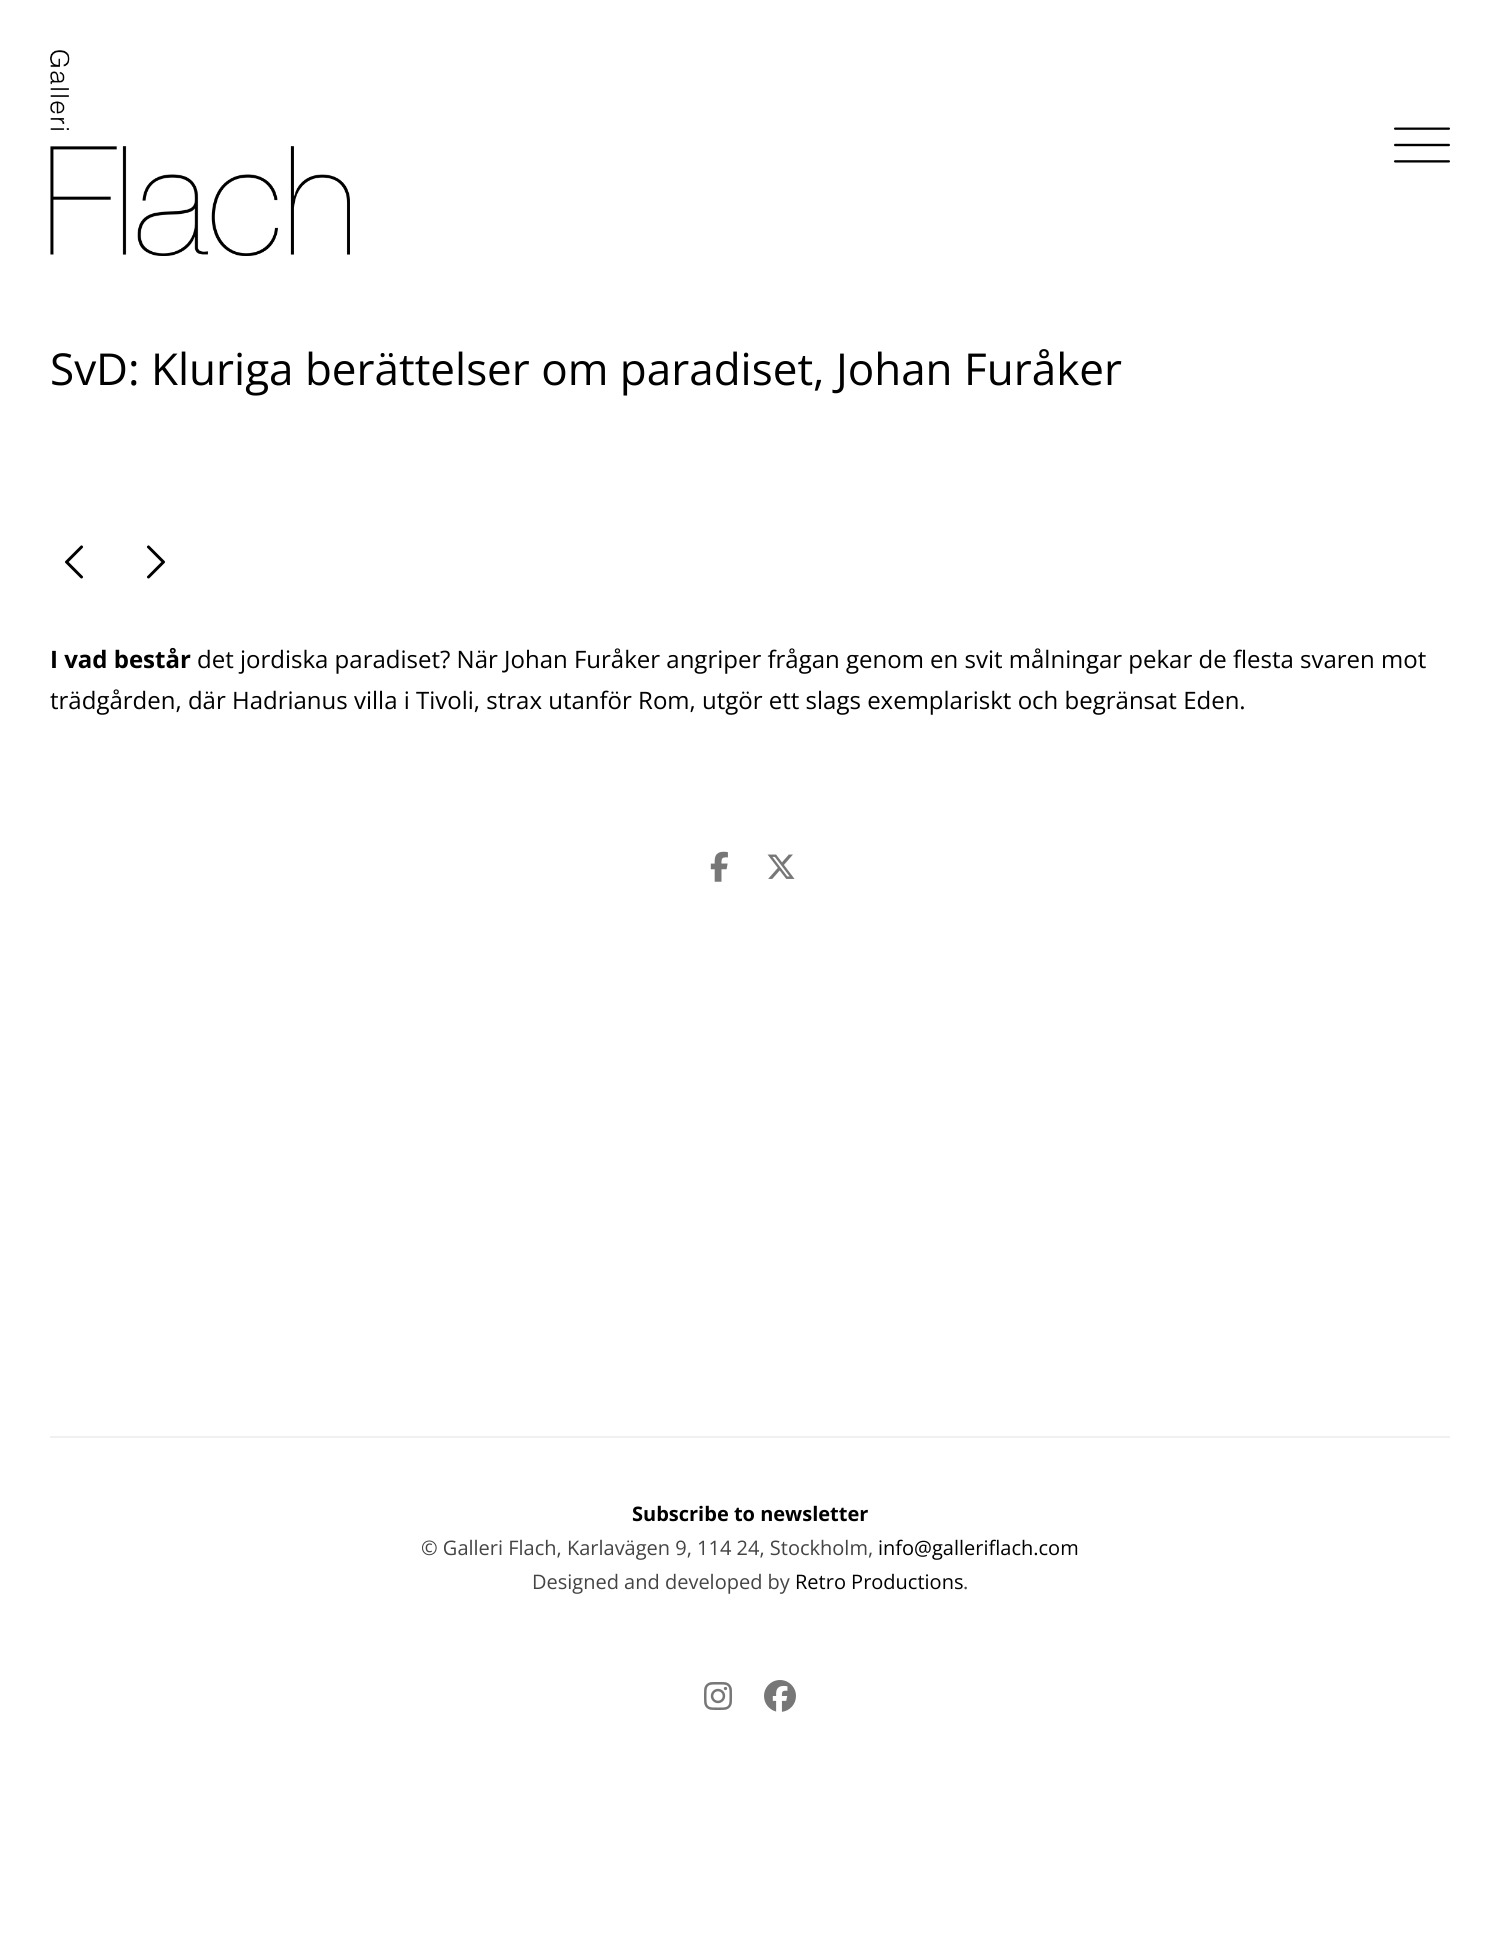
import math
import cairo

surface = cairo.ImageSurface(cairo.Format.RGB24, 1499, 1937)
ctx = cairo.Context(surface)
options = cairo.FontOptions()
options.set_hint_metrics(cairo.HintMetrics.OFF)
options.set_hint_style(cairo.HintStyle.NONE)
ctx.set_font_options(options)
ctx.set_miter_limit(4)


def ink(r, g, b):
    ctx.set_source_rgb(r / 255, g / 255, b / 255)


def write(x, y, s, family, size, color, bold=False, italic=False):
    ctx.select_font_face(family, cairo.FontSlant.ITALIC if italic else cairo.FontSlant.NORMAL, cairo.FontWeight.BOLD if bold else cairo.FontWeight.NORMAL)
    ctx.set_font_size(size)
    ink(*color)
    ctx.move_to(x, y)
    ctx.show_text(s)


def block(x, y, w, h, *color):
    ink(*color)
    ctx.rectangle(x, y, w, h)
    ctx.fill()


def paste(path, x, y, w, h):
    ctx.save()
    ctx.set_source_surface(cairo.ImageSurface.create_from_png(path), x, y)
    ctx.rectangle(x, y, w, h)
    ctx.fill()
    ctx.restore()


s1 = dict(family="Open Sans", size=44, color=(0, 0, 0))
s2 = dict(family="Open Sans", size=24, color=(0, 0, 0), bold=True)
s3 = dict(family="Open Sans", size=24, color=(0, 0, 0))
s4 = dict(family="Open Sans", size=20, color=(0, 0, 0), bold=True)
s5 = dict(family="Open Sans", size=20, color=(68, 68, 68))
s6 = dict(family="Open Sans", size=20, color=(0, 0, 0))

ink(255, 255, 255)
ctx.paint()
paste("pic1.png", 50, 50, 300, 206)
paste("pic2.png", 1394, 127, 56, 36)
write(50, 385, "SvD: Kluriga berättelser om paradiset, Johan Furåker", **s1)
paste("pic3.png", 65, 545, 19, 34)
paste("pic4.png", 146, 545, 19, 34)
write(50, 668, "I vad består", **s2)
write(197, 668, "det jordiska paradiset? När Johan Furåker angriper frågan genom en svit målningar pekar de flesta svaren mot", **s3)
write(50, 709, "trädgården, där Hadrianus villa i Tivoli, strax utanför Rom, utgör ett slags exemplariskt och begränsat Eden.", **s3)
paste("pic5.png", 710, 851, 18, 31)
paste("pic6.png", 767, 854, 28, 25)
block(50, 1436, 1400, 2, 240, 240, 240)
write(632, 1521, "Subscribe to newsletter", **s4)
write(421, 1555, "© Galleri Flach, Karlavägen 9, 114 24, Stockholm,", **s5)
write(878, 1555, "info@galleriflach.com", **s6)
write(532, 1589, "Designed and developed by", **s5)
write(795, 1589, "Retro Productions", **s6)
write(963, 1589, ".", **s5)
paste("pic7.png", 704, 1682, 28, 28)
paste("pic8.png", 764, 1680, 32, 32)
surface.write_to_png("screenshot.png")
